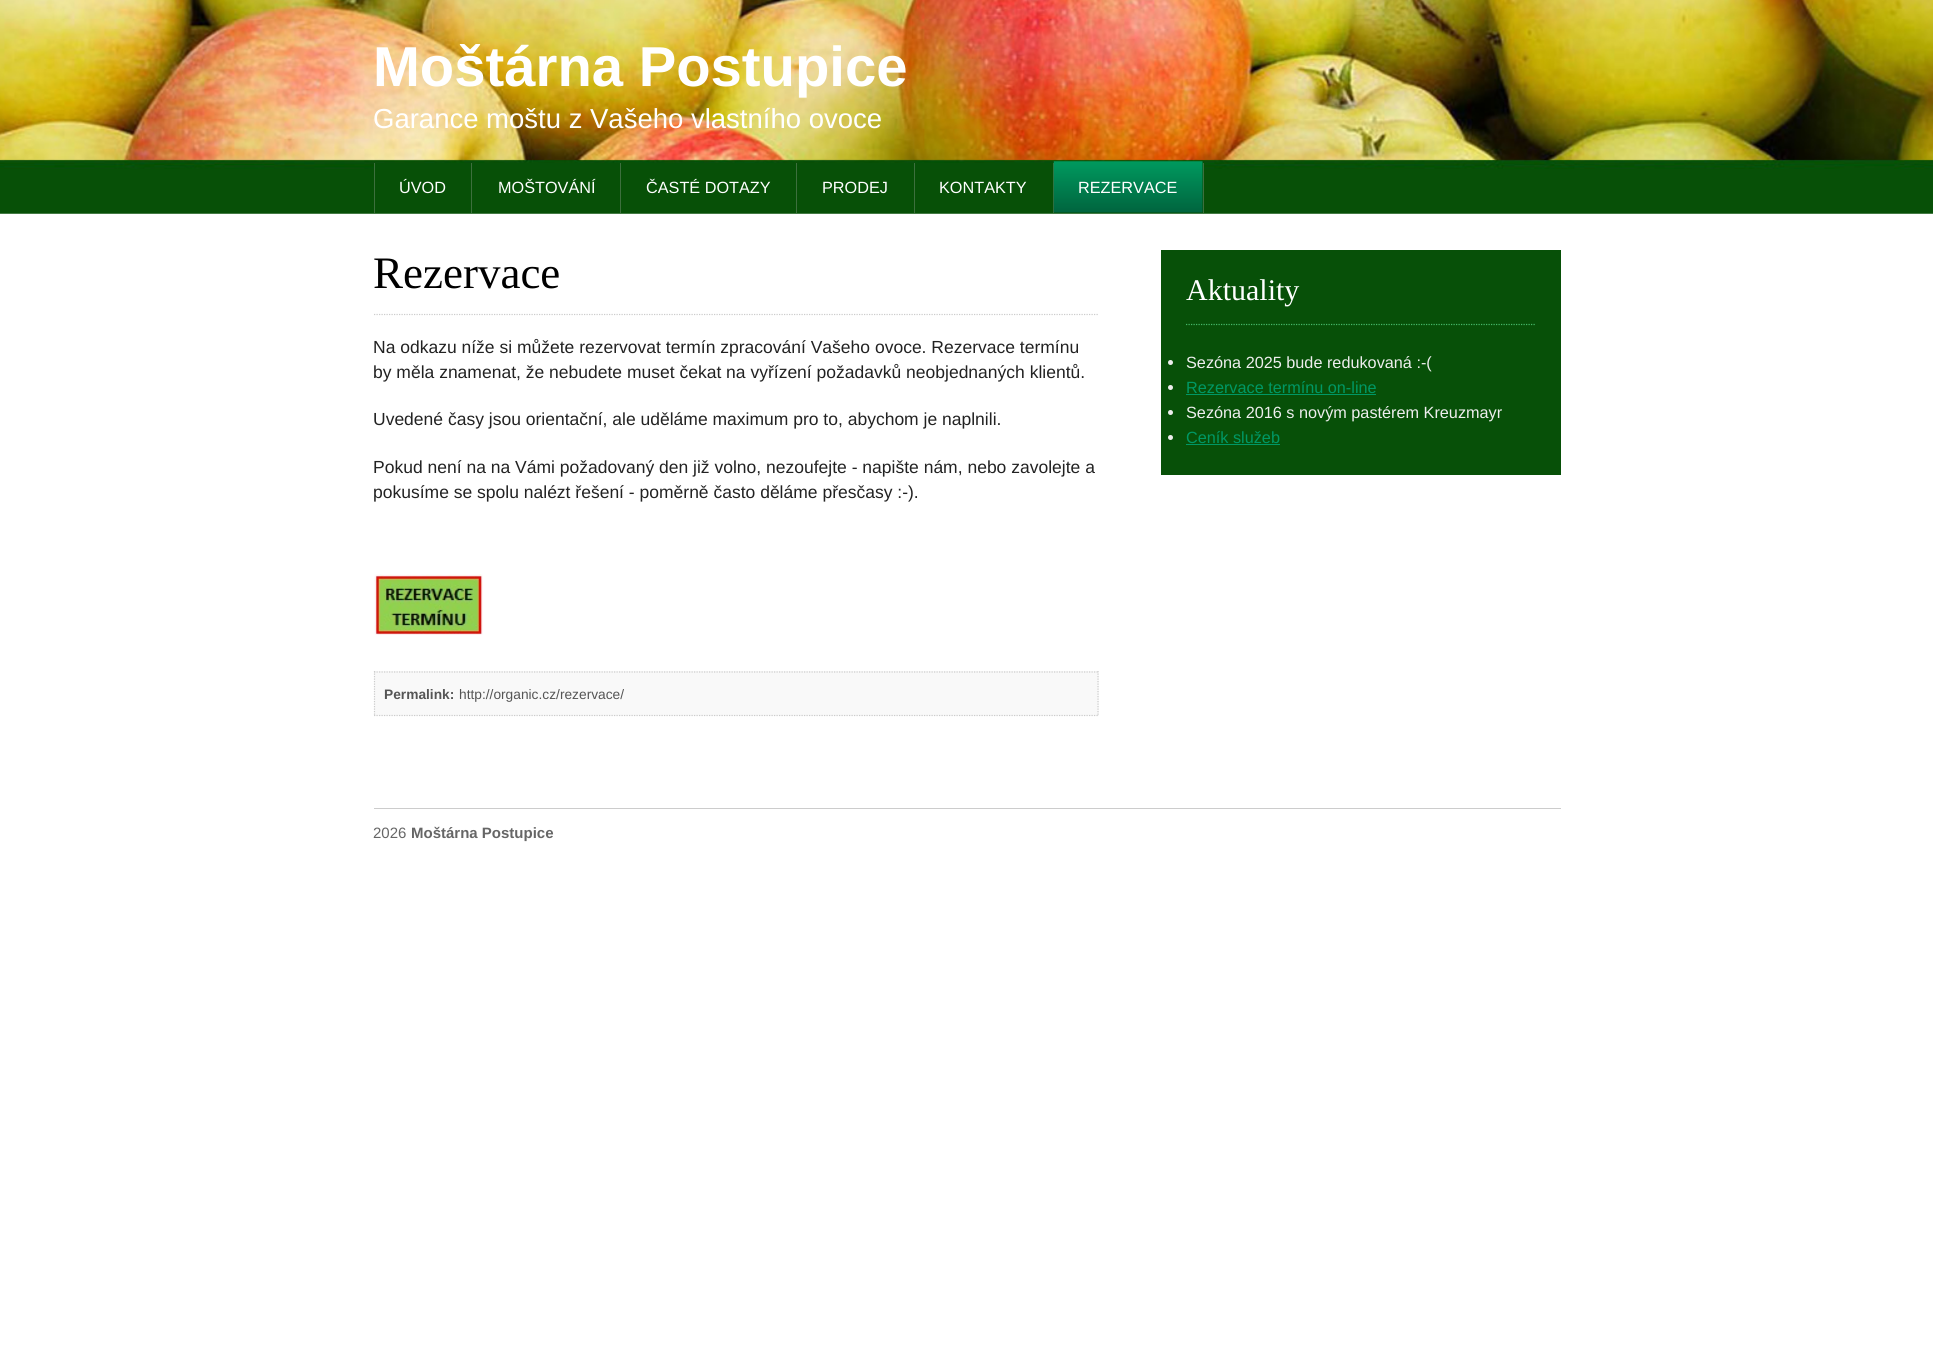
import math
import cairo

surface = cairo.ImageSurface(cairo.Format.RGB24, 1933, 1355)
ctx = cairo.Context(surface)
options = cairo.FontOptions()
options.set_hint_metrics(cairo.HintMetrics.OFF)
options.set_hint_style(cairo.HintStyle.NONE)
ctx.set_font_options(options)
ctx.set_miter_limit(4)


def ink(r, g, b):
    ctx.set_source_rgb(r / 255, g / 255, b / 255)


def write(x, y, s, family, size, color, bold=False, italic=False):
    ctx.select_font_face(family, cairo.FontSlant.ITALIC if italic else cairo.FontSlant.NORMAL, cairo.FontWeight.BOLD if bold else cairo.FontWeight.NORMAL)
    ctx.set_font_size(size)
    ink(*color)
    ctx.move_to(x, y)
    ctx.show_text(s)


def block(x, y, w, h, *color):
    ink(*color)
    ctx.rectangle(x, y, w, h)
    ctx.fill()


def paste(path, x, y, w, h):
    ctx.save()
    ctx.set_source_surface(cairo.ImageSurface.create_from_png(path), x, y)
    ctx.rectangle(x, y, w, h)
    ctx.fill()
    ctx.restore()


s1 = dict(family="Liberation Sans", size=56.25, color=(255, 255, 255), bold=True)
s2 = dict(family="Liberation Sans", size=27.5, color=(255, 255, 255))
s3 = dict(family="Liberation Sans", size=16.25, color=(255, 255, 255))
s4 = dict(family="Liberation Serif", size=45, color=(0, 0, 0))
s5 = dict(family="Liberation Sans", size=17.5, color=(34, 34, 34))
s6 = dict(family="Liberation Sans", size=13.75, color=(85, 85, 85), bold=True)
s7 = dict(family="Liberation Sans", size=13.75, color=(85, 85, 85))
s8 = dict(family="Liberation Serif", size=30, color=(255, 255, 255))
s9 = dict(family="Liberation Sans", size=16.25, color=(238, 238, 238))
s10 = dict(family="Liberation Sans", size=16.25, color=(0, 152, 101))
s11 = dict(family="Liberation Sans", size=15, color=(102, 102, 102))
s12 = dict(family="Liberation Sans", size=15, color=(102, 102, 102), bold=True)

ink(255, 255, 255)
ctx.paint()
paste("pic1.png", 0, 0, 1933, 214)
write(373, 86, "Moštárna Postupice", **s1)
write(373, 128, "Garance moštu z Vašeho vlastního ovoce", **s2)
block(375, 163, 828, 6, 7, 80, 8)
block(471, 163, 1, 50, 61, 111, 61)
block(374, 163, 1, 50, 61, 111, 61)
write(399, 193, "ÚVOD", **s3)
block(620, 163, 1, 50, 61, 111, 61)
write(498, 193, "MOŠTOVÁNÍ", **s3)
block(796, 163, 1, 50, 61, 111, 61)
write(646, 193, "ČASTÉ DOTAZY", **s3)
block(914, 163, 1, 50, 61, 111, 61)
write(822, 193, "PRODEJ", **s3)
block(1053, 163, 1, 50, 61, 111, 61)
write(939, 193, "KONTAKTY", **s3)
block(1203, 163, 1, 50, 61, 111, 61)
paste("pic2.png", 1053, 161, 150, 52)
write(1078, 193, "REZERVACE", **s3)
ctx.new_path()
ctx.move_to(374, 314.5)
ctx.line_to(1099, 314.5)
ink(204, 204, 204)
ctx.set_line_width(1.2)
ctx.set_dash([1.25, 1.25])
ctx.stroke()
write(373, 288, "Rezervace", **s4)
write(373, 353, "Na odkazu níže si můžete rezervovat termín zpracování Vašeho ovoce. Rezervace termínu", **s5)
write(373, 378, "by měla znamenat, že nebudete muset čekat na vyřízení požadavků neobjednaných klientů.", **s5)
write(373, 425, "Uvedené časy jsou orientační, ale uděláme maximum pro to, abychom je naplnili.", **s5)
write(373, 473, "Pokud není na na Vámi požadovaný den již volno, nezoufejte - napište nám, nebo zavolejte a", **s5)
write(373, 498, "pokusíme se spolu nalézt řešení - poměrně často děláme přesčasy :-).", **s5)
paste("pic3.png", 374, 574, 109, 61)
block(374, 671, 725, 45, 249, 249, 249)
ctx.new_path()
ctx.move_to(374, 672)
ctx.line_to(1099, 672)
ink(204, 204, 204)
ctx.stroke()
ctx.new_path()
ctx.move_to(1098, 671)
ctx.line_to(1098, 716)
ctx.stroke()
ctx.new_path()
ctx.move_to(374, 715.5)
ctx.line_to(1099, 715.5)
ctx.stroke()
ctx.new_path()
ctx.move_to(374.5, 671)
ctx.line_to(374.5, 716)
ctx.stroke()
write(384, 699, "Permalink:", **s6)
write(459, 699, "http://organic.cz/rezervace/", **s7)
block(1161, 250, 400, 225, 7, 80, 8)
ctx.new_path()
ctx.move_to(1186, 324.5)
ctx.line_to(1536, 324.5)
ink(69, 183, 104)
ctx.stroke()
write(1186, 300, "Aktuality", **s8)
ink(238, 238, 238)
ctx.new_path()
ctx.arc(1170.5, 362.5, 2.5, 0, 2 * math.pi)
ctx.fill()
write(1186, 368, "Sezóna 2025 bude redukovaná :-(", **s9)
ctx.new_path()
ctx.arc(1170.5, 387.5, 2.5, 0, 2 * math.pi)
ctx.fill()
write(1186, 393, "Rezervace termínu on-line", **s10)
block(1186, 394, 190, 1, 0, 152, 101)
ink(238, 238, 238)
ctx.new_path()
ctx.arc(1170.5, 412.5, 2.5, 0, 2 * math.pi)
ctx.fill()
write(1186, 418, "Sezóna 2016 s novým pastérem Kreuzmayr", **s9)
ctx.new_path()
ctx.arc(1170.5, 437.5, 2.5, 0, 2 * math.pi)
ctx.fill()
write(1186, 443, "Ceník služeb", **s10)
block(1186, 444, 94, 1, 0, 152, 101)
block(374, 808, 1187, 1, 204, 204, 204)
write(373, 838, "2026", **s11)
write(411, 838, "Moštárna Postupice", **s12)
surface.write_to_png("screenshot.png")
